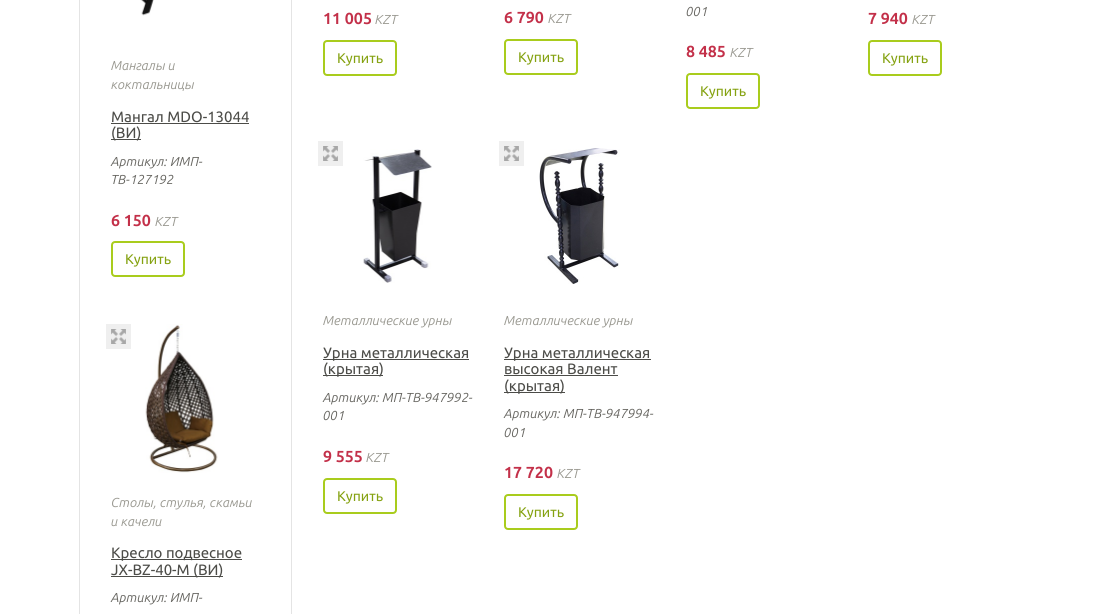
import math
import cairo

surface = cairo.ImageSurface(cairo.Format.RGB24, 1098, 614)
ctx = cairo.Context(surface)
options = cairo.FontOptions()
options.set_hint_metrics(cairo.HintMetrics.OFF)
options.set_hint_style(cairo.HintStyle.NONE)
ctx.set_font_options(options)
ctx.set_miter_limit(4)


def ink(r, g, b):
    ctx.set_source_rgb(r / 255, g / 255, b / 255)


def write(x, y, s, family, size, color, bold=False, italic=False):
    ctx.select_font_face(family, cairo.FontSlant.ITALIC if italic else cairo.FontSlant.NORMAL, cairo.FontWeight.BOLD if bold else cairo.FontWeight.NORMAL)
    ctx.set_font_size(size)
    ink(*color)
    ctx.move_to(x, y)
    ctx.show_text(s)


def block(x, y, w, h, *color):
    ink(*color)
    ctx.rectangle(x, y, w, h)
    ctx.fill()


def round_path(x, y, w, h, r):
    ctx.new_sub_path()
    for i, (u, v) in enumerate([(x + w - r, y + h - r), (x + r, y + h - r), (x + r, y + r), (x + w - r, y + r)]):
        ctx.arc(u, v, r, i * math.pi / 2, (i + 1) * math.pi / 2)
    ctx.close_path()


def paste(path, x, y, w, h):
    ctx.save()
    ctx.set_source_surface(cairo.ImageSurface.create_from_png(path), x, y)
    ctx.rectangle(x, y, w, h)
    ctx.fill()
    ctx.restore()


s1 = dict(family="Ubuntu", size=13, color=(153, 152, 144), italic=True)
s2 = dict(family="Ubuntu", size=15, color=(76, 76, 72))
s3 = dict(family="Ubuntu", size=13, color=(102, 101, 96), italic=True)
s4 = dict(family="Ubuntu", size=16, color=(195, 48, 73), bold=True)
s5 = dict(family="Ubuntu", size=14, color=(133, 162, 17))

ink(255, 255, 255)
ctx.paint()
ctx.rectangle(79.5, -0.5, 212, 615)
ink(228, 228, 228)
ctx.set_line_width(1)
ctx.stroke()
paste("pic1.png", 140, 0, 14, 16)
write(111, 70, "Мангалы и", **s1)
write(111, 89, "коктальницы", **s1)
write(111, 122, "Мангал MDO-13044", **s2)
block(111, 123, 138, 1, 76, 76, 72)
block(111, 139, 30, 1, 76, 76, 72)
write(111, 138, "(ВИ)", **s2)
write(111, 166, "Артикул: ИМП-", **s3)
write(111, 184, "ТВ-127192", **s3)
write(111, 226, "6 150", **s4)
write(155, 226, "KZT", **s1)
round_path(112, 242, 72, 34, 3)
ink(169, 204, 29)
ctx.set_line_width(2)
ctx.stroke()
write(125, 264, "Купить", **s5)
block(106, 324, 25, 25, 239, 239, 239)
paste("pic2.png", 111, 329, 15, 15)
paste("pic3.png", 145, 324, 73, 149)
write(111, 507, "Столы, стулья, скамьи", **s1)
write(111, 526, "и качели", **s1)
block(111, 559, 131, 1, 76, 76, 72)
write(111, 558, "Кресло подвесное", **s2)
block(111, 576, 112, 1, 76, 76, 72)
write(111, 575, "JX-BZ-40-M (ВИ)", **s2)
write(111, 602, "Артикул: ИМП-", **s3)
write(323, 24, "11 005", **s4)
write(375, 24, "KZT", **s1)
round_path(324, 41, 72, 34, 3)
ink(169, 204, 29)
ctx.stroke()
write(337, 63, "Купить", **s5)
write(504, 23, "6 790", **s4)
write(548, 23, "KZT", **s1)
round_path(505, 40, 72, 34, 3)
ink(169, 204, 29)
ctx.stroke()
write(518, 62, "Купить", **s5)
write(686, 16, "001", **s3)
write(686, 57, "8 485", **s4)
write(730, 57, "KZT", **s1)
round_path(687, 74, 72, 34, 3)
ink(169, 204, 29)
ctx.stroke()
write(700, 96, "Купить", **s5)
write(868, 24, "7 940", **s4)
write(912, 24, "KZT", **s1)
round_path(869, 41, 72, 34, 3)
ink(169, 204, 29)
ctx.stroke()
write(882, 63, "Купить", **s5)
block(318, 141, 25, 25, 239, 239, 239)
paste("pic2.png", 323, 146, 15, 15)
paste("pic4.png", 363, 149, 69, 134)
write(323, 325, "Металлические урны", **s1)
block(323, 359, 146, 1, 76, 76, 72)
write(323, 358, "Урна металлическая", **s2)
block(323, 375, 60, 1, 76, 76, 72)
write(323, 374, "(крытая)", **s2)
write(323, 402, "Артикул: МП-ТВ-947992-", **s3)
write(323, 420, "001", **s3)
write(323, 462, "9 555", **s4)
write(366, 462, "KZT", **s1)
round_path(324, 479, 72, 34, 3)
ink(169, 204, 29)
ctx.stroke()
write(337, 501, "Купить", **s5)
block(499, 141, 25, 25, 239, 239, 239)
paste("pic2.png", 504, 146, 15, 15)
paste("pic5.png", 539, 148, 81, 136)
write(504, 325, "Металлические урны", **s1)
block(504, 359, 147, 1, 76, 76, 72)
write(504, 358, "Урна металлическая", **s2)
write(504, 374, "высокая Валент", **s2)
block(504, 375, 114, 1, 76, 76, 72)
block(504, 392, 61, 1, 76, 76, 72)
write(504, 391, "(крытая)", **s2)
write(504, 418, "Артикул: МП-ТВ-947994-", **s3)
write(504, 437, "001", **s3)
write(504, 478, "17 720", **s4)
write(557, 478, "KZT", **s1)
round_path(505, 495, 72, 34, 3)
ink(169, 204, 29)
ctx.stroke()
write(518, 517, "Купить", **s5)
surface.write_to_png("screenshot.png")
